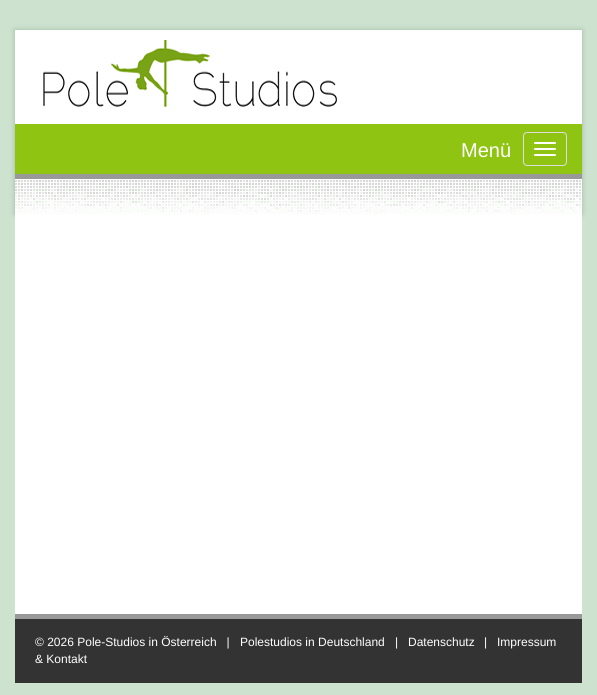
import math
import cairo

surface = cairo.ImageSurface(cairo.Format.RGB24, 597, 695)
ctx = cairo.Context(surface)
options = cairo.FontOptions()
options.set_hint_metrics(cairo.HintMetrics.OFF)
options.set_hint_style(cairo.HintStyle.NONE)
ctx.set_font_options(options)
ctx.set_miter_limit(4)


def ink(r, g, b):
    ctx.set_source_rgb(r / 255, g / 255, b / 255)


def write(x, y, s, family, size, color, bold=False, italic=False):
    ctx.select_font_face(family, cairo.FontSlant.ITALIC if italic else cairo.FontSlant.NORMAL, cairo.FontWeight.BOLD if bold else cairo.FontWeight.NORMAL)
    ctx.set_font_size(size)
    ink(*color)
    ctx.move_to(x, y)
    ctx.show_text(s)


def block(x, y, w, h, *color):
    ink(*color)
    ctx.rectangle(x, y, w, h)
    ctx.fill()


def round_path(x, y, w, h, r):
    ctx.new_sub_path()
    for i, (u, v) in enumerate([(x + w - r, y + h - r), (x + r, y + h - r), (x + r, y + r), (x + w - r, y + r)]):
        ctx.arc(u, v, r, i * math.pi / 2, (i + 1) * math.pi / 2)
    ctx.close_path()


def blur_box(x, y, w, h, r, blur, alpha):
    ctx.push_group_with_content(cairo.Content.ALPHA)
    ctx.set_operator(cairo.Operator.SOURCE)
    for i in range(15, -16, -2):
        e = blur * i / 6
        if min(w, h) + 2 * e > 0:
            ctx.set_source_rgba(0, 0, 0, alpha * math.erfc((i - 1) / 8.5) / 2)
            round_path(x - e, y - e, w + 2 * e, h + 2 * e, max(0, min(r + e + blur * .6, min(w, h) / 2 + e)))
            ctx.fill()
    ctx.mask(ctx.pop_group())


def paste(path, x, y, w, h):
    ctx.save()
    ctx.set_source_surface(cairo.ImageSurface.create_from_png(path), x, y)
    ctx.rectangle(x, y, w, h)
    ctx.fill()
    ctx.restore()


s1 = dict(family="Liberation Sans", size=20, color=(255, 255, 255))
s2 = dict(family="Liberation Sans", size=12, color=(255, 255, 255))

ink(205, 227, 207)
ctx.paint()
ink(0, 0, 0)
blur_box(15, 30, 567, 184, 0, 3, 0.2)
block(15, 30, 567, 584, 255, 255, 255)
paste("pic1.png", 43, 40, 294, 67)
block(15, 124, 567, 50, 143, 196, 18)
round_path(523.5, 132.5, 43, 33, 3.5)
ink(221, 221, 221)
ctx.set_line_width(1)
ctx.stroke()
write(461, 157, "Menü", **s1)
round_path(534, 142, 22, 2, 1)
ctx.fill()
round_path(534, 148, 22, 2, 1)
ctx.fill()
round_path(534, 154, 22, 2, 1)
ctx.fill()
block(15, 174, 567, 5, 153, 153, 153)
paste("pic2.png", 15, 180, 566, 34)
block(15, 614, 567, 5, 153, 153, 153)
block(15, 619, 567, 64, 51, 51, 51)
write(35, 646, "© 2026 Pole-Studios in Österreich   |", **s2)
write(240, 646, "Polestudios in Deutschland", **s2)
write(395, 646, "|", **s2)
write(408, 646, "Datenschutz", **s2)
write(484, 646, "|", **s2)
write(497, 646, "Impressum", **s2)
write(35, 663, "& Kontakt", **s2)
surface.write_to_png("screenshot.png")
